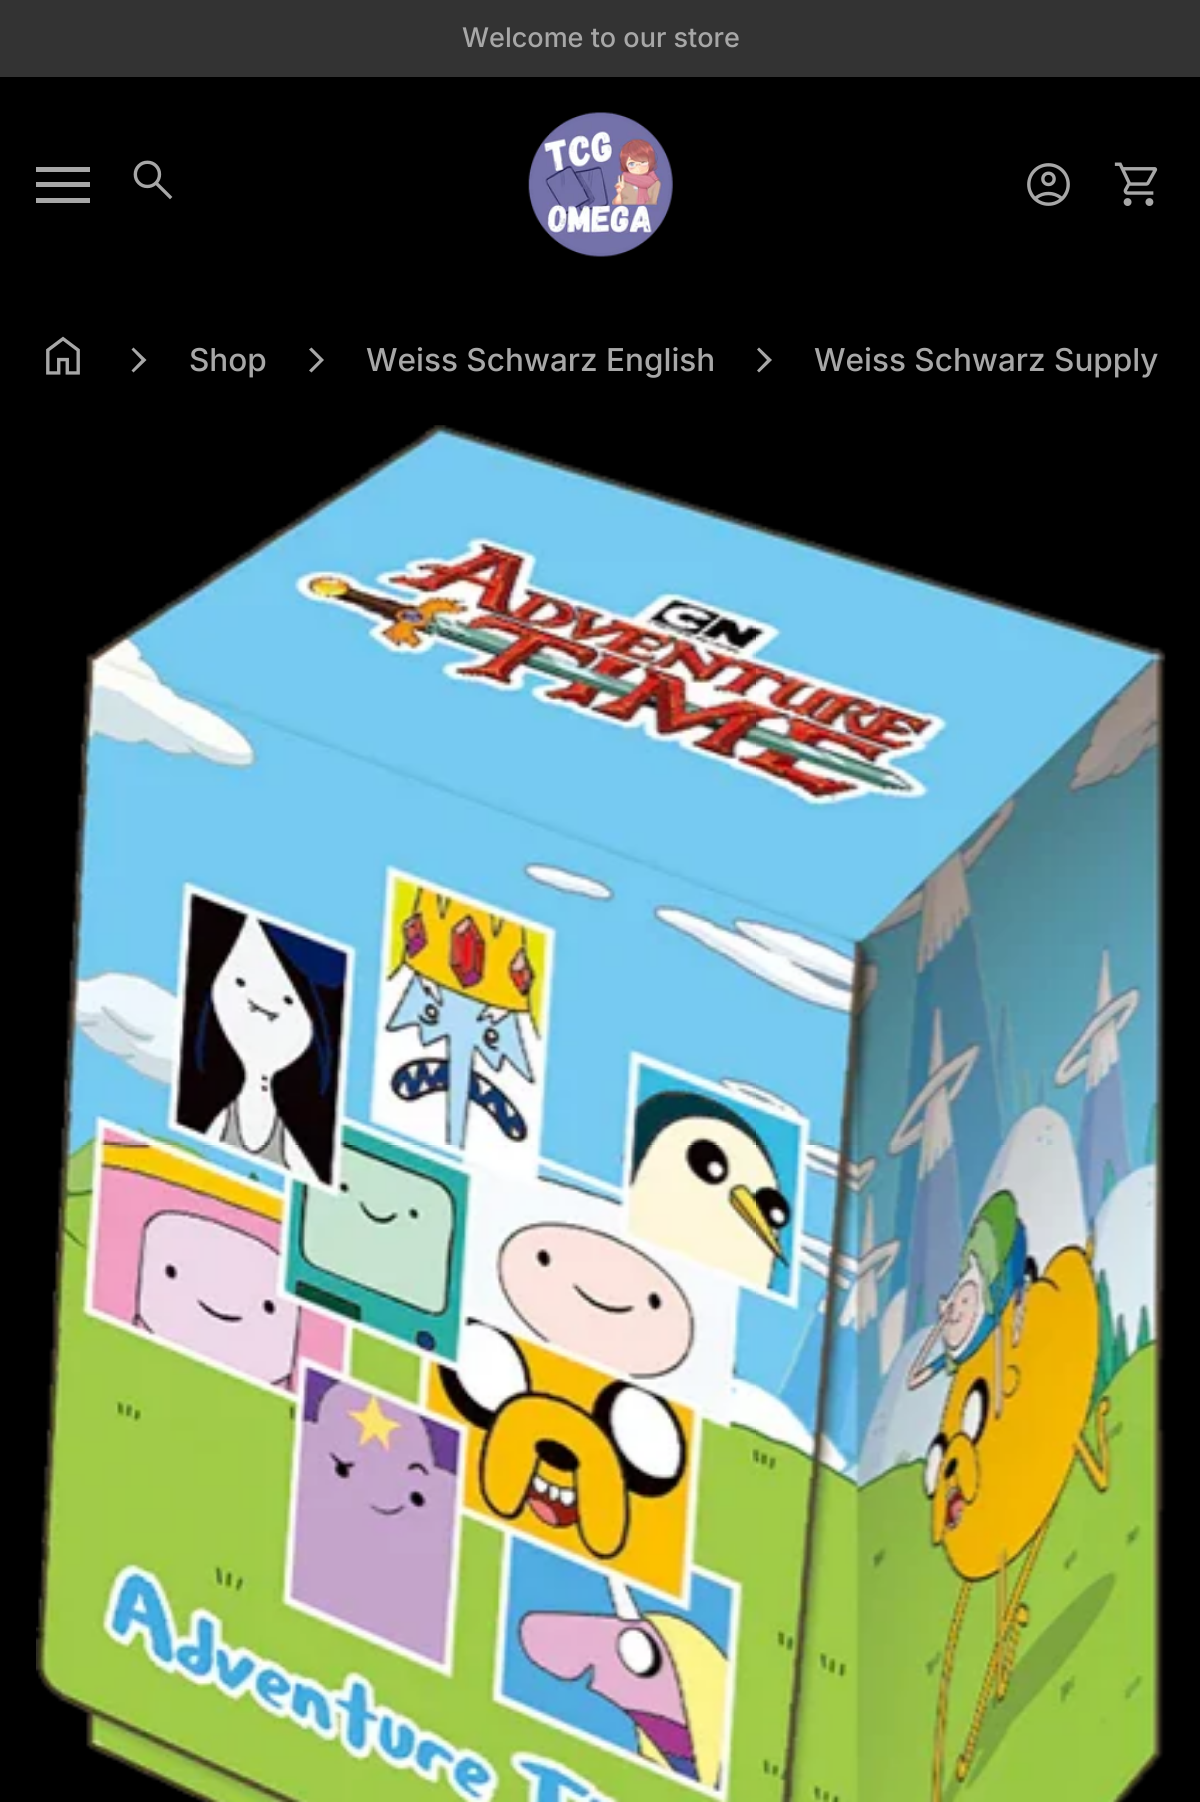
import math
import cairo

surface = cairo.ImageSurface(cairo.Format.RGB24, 1200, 1802)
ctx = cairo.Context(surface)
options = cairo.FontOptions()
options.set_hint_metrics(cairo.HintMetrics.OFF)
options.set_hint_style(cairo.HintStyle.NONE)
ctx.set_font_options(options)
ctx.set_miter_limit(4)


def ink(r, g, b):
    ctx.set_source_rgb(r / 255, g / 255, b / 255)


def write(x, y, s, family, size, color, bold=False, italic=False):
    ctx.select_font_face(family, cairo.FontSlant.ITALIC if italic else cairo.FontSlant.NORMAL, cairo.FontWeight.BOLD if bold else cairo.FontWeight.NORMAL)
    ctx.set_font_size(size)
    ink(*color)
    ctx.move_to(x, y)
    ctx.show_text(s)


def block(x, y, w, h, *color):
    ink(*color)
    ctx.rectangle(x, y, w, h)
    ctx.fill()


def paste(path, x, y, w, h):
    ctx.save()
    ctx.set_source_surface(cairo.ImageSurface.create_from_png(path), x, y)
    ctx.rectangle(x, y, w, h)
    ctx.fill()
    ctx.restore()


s1 = dict(family="Inter Medium", size=27, color=(167, 167, 167))
s2 = dict(family="Inter Medium", size=31.5, color=(167, 167, 167))

ink(0, 0, 0)
ctx.paint()
block(0, 0, 1200, 77, 51, 51, 51)
write(462, 47, "Welcome to our store", **s1)
block(36, 167, 54, 5, 167, 167, 167)
block(36, 182, 54, 5, 167, 167, 167)
block(36, 198, 54, 5, 167, 167, 167)
paste("pic1.png", 133, 160, 40, 40)
paste("pic2.png", 528, 112, 145, 145)
paste("pic3.png", 1027, 163, 43, 43)
paste("pic4.png", 1114, 162, 44, 44)
paste("pic5.png", 46, 336, 34, 39)
ctx.new_path()
ctx.move_to(141.5, 360)
ctx.line_to(131.5, 349.5)
ctx.line_to(133.5, 347.5)
ctx.line_to(146.5, 360)
ctx.line_to(133.5, 372.5)
ctx.line_to(131.5, 370.5)
ctx.close_path()
ctx.fill()
write(189, 371, "Shop", **s2)
ctx.new_path()
ctx.move_to(319.5, 360)
ctx.line_to(309, 349.5)
ctx.line_to(311.5, 347.5)
ctx.line_to(324, 360)
ctx.line_to(311.5, 372.5)
ctx.line_to(309, 370.5)
ctx.close_path()
ctx.fill()
write(366, 371, "Weiss Schwarz English", **s2)
ctx.new_path()
ctx.move_to(767, 360)
ctx.line_to(757, 349.5)
ctx.line_to(759, 347.5)
ctx.line_to(772, 360)
ctx.line_to(759, 372.5)
ctx.line_to(757, 370.5)
ctx.close_path()
ctx.fill()
write(814, 371, "Weiss Schwarz Supply", **s2)
paste("pic6.png", 36, 425, 1130, 1377)
surface.write_to_png("screenshot.png")
